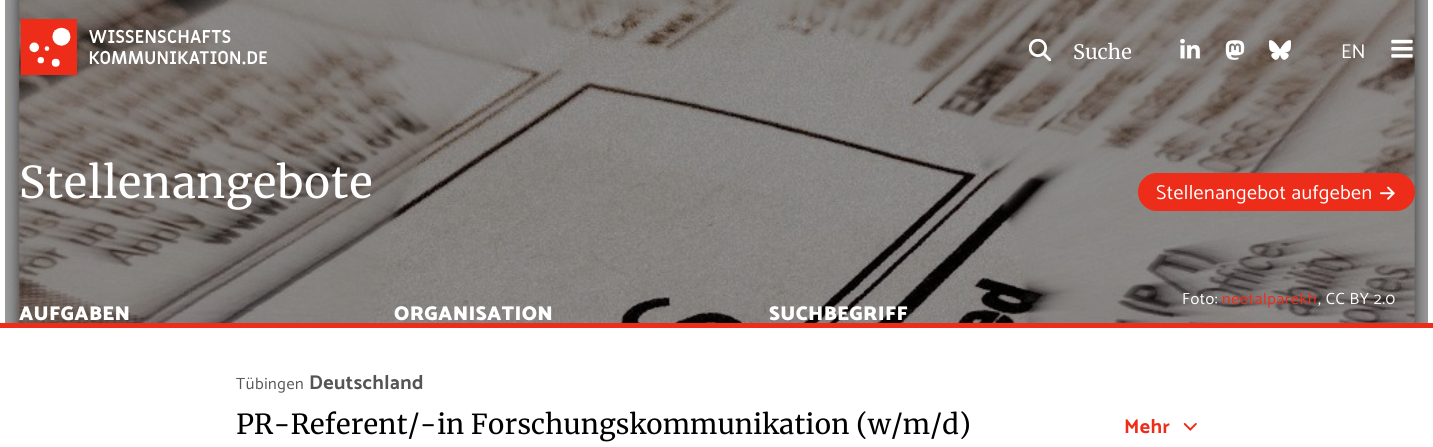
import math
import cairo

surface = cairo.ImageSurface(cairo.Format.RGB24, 1433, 447)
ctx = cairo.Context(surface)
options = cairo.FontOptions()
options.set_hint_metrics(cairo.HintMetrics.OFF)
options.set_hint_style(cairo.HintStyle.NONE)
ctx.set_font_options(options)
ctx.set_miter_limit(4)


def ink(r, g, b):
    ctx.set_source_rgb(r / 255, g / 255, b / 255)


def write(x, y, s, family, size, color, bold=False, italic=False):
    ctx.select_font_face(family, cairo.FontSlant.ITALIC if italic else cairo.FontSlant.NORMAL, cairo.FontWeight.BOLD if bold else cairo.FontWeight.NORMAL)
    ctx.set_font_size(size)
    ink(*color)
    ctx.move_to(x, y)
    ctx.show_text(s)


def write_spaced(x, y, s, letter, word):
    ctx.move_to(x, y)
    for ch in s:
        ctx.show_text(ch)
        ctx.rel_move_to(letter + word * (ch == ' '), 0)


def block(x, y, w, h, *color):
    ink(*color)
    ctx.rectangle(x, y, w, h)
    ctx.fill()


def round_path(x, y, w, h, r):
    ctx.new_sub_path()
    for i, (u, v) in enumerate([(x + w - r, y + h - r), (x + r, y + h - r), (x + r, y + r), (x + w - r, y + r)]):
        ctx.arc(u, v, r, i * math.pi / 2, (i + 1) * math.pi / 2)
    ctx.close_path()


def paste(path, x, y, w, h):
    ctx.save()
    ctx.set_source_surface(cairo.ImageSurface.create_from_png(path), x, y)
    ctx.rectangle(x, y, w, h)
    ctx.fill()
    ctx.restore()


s1 = dict(family="Merriweather", size=20, color=(255, 255, 255))
s2 = dict(family="Catamaran", size=20, color=(255, 255, 255))
s3 = dict(family="Merriweather", size=27.5, color=(0, 0, 0))

ink(255, 255, 255)
ctx.paint()
paste("pic8.png", 5, 0, 1423, 323)
paste("pic1.png", 20, 19, 247, 56)
paste("pic2.png", 1029, 39, 22, 22)
write(1073, 59, "Suche", **s1)
paste("pic3.png", 1180, 39, 20, 20)
paste("pic4.png", 1225, 40, 20, 20)
paste("pic5.png", 1269, 40, 22, 20)
write(1341, 58, "EN", **s2)
paste("pic6.png", 1391, 39, 22, 19)
ctx.select_font_face("Merriweather")
ctx.set_font_size(43.75)
write_spaced(19, 198, "Stellenangebote", 0.4, 0)
ink(237, 45, 26)
round_path(1138, 173, 277, 38, 19)
ctx.fill()
ctx.select_font_face("Catamaran")
ctx.set_font_size(20)
ink(255, 255, 255)
write_spaced(1156, 199, "Stellenangebot aufgeben", 0.4, 0)
paste("pic7.png", 1380, 186, 15, 14)
ctx.select_font_face("Catamaran Black")
write_spaced(19, 320, "AUFGABEN", 0.4, 0)
write_spaced(394, 320, "ORGANISATION", 0.4, 0)
write_spaced(769, 320, "SUCHBEGRIFF", 0.4, 0)
block(0, 323, 1433, 5, 237, 45, 26)
ctx.select_font_face("Catamaran")
ctx.set_font_size(16.25)
ink(255, 255, 255)
write_spaced(1182, 304, "Foto:", 0.6, 0)
ink(237, 45, 26)
write_spaced(1222, 304, "neetalparekh", 0.6, 0)
ink(255, 255, 255)
write_spaced(1318, 304, ", CC BY 2.0", 0.6, 0)
ink(85, 85, 85)
write_spaced(236, 389, "Tübingen", 0.6, 0)
ctx.select_font_face("Catamaran", cairo.FontSlant.NORMAL, cairo.FontWeight.BOLD)
ctx.set_font_size(20)
write_spaced(309, 389, "Deutschland", 0.4, 0)
write(236, 434, "PR-Referent/-in Forschungskommunikation (w/m/d)", **s3)
ctx.select_font_face("Catamaran", cairo.FontSlant.NORMAL, cairo.FontWeight.BOLD)
ctx.set_font_size(20)
ink(237, 45, 26)
write_spaced(1124, 433, "Mehr", 0.4, 0)
paste("pic9.png", 1183, 423, 14, 8)
surface.write_to_png("screenshot.png")
